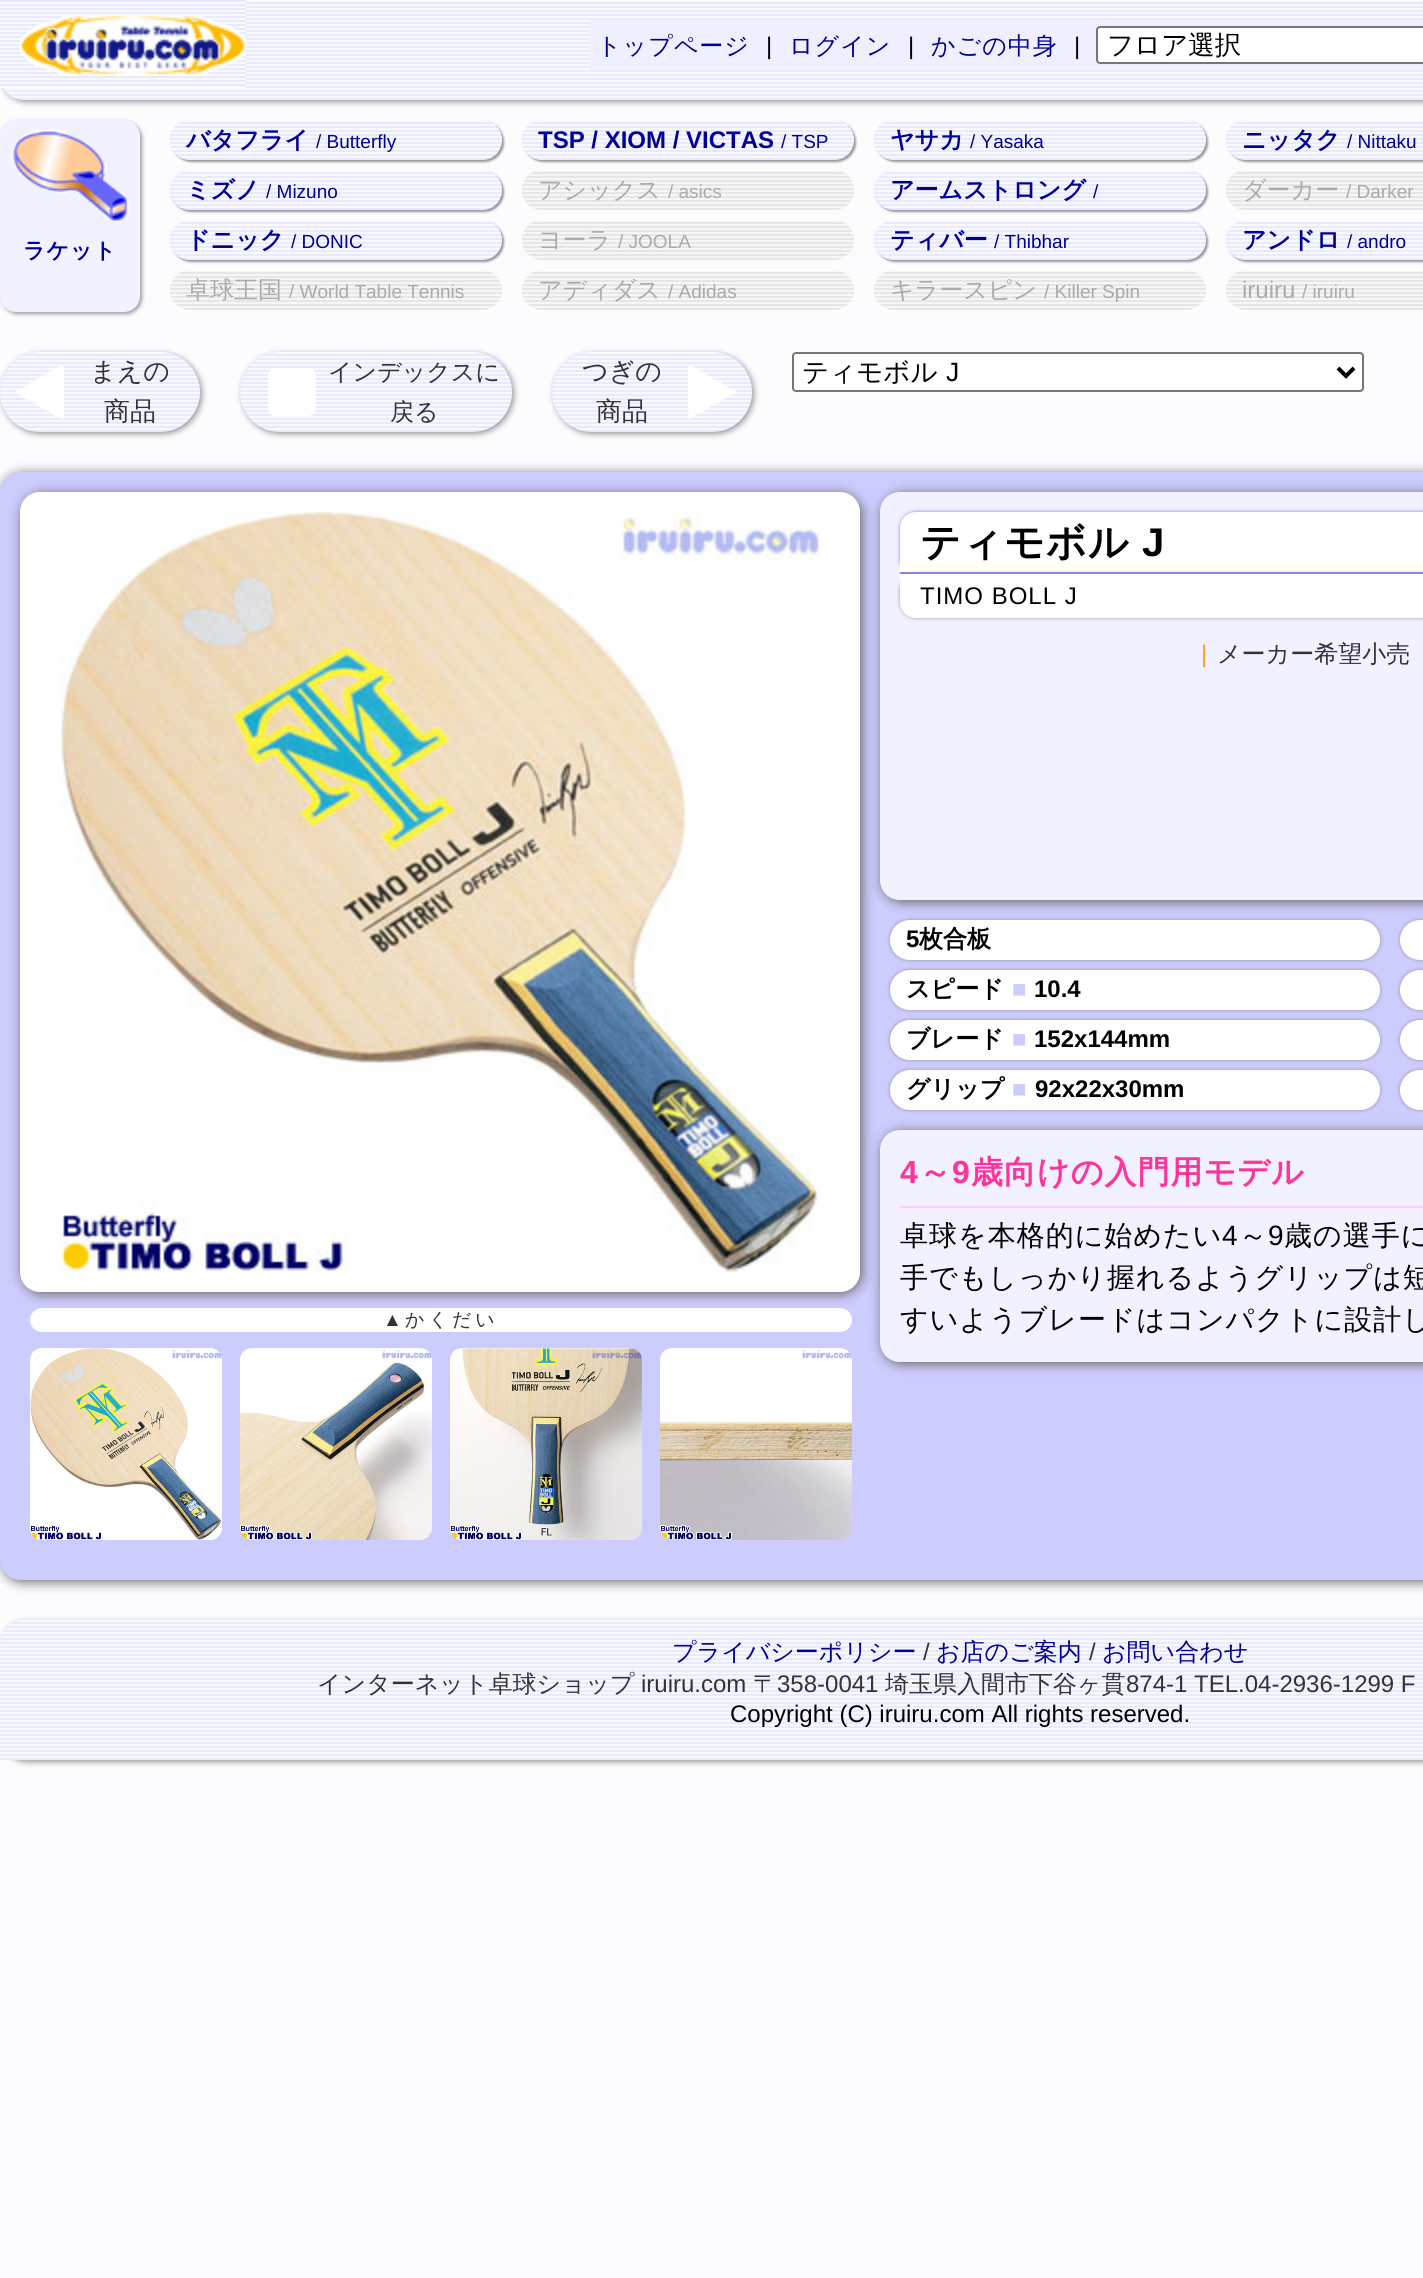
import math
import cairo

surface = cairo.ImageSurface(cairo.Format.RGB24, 1423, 2278)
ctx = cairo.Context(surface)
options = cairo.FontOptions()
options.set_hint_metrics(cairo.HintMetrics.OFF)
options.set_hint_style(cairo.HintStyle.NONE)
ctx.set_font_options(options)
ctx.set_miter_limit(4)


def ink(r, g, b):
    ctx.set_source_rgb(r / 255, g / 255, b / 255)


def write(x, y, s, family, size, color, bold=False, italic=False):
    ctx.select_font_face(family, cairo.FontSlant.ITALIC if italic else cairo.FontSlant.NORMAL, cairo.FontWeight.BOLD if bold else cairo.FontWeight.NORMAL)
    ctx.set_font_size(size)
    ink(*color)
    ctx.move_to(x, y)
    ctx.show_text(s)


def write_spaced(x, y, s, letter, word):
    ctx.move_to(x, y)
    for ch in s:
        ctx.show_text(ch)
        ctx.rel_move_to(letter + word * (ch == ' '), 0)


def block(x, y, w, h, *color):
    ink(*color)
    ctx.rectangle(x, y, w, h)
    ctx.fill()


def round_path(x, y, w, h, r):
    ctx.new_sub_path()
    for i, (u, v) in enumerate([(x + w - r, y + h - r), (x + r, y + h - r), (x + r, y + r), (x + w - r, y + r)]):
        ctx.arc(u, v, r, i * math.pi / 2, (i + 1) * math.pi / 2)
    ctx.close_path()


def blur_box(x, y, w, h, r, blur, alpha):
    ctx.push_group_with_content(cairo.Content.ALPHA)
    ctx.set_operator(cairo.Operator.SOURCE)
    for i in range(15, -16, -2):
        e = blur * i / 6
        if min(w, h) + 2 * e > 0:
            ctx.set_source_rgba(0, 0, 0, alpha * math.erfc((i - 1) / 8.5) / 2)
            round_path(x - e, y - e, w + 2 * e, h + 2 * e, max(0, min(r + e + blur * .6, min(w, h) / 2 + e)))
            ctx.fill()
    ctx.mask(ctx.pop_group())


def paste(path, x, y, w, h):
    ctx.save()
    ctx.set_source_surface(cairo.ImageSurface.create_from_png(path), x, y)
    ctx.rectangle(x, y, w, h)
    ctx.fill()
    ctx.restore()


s1 = dict(family="WenQuanYi Zen Hei Medium", size=26.5, color=(0, 0, 0))
s2 = dict(family="WenQuanYi Zen Hei", size=24, color=(0, 0, 153), bold=True)
s3 = dict(family="Liberation Sans", size=19, color=(0, 0, 153))
s4 = dict(family="Liberation Sans", size=24, color=(0, 0, 153), bold=True)
s5 = dict(family="WenQuanYi Zen Hei Medium", size=24, color=(170, 170, 170))
s6 = dict(family="Liberation Sans", size=19, color=(170, 170, 170))
s7 = dict(family="Liberation Sans", size=24, color=(170, 170, 170))
s8 = dict(family="WenQuanYi Zen Hei Medium", size=26, color=(51, 51, 51))
s9 = dict(family="WenQuanYi Zen Hei Medium", size=24, color=(51, 51, 51))
s10 = dict(family="Liberation Sans", size=26.5, color=(0, 0, 0))
s11 = dict(family="Liberation Sans", size=24, color=(255, 153, 51))
s12 = dict(family="Liberation Sans", size=24, color=(0, 0, 0), bold=True)
s13 = dict(family="WenQuanYi Zen Hei", size=24, color=(0, 0, 0), bold=True)
s14 = dict(family="Liberation Sans", size=24, color=(204, 204, 255), bold=True)
s15 = dict(family="WenQuanYi Zen Hei Medium", size=24, color=(0, 0, 153))
s16 = dict(family="Liberation Sans", size=24, color=(51, 51, 51))
s17 = dict(family="Liberation Sans", size=24, color=(0, 0, 0))

ink(252, 252, 255)
ctx.paint()
ink(153, 153, 153)
blur_box(2, 2, 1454, 100, 24, 3, 1)
ink(227, 227, 255)
ctx.new_path()
ctx.move_to(0, 0)
ctx.line_to(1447, 0)
ctx.line_to(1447, 76)
ctx.curve_to(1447, 89.5, 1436.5, 100, 1423, 100)
ctx.line_to(24, 100)
ctx.curve_to(10.5, 100, 0, 89.5, 0, 76)
ctx.close_path()
ctx.fill()
paste("pic1.png", 3, 0, 1420, 100)
paste("pic2.png", 0, 0, 246, 88)
paste("pic3.png", 20, 16, 226, 60)
block(590, 20, 833, 50, 239, 239, 255)
ctx.select_font_face("WenQuanYi Zen Hei Medium")
ctx.set_font_size(24)
ink(0, 0, 153)
write_spaced(597, 54, "トップページ", 1, 0)
ctx.select_font_face("Liberation Sans")
ink(0, 0, 0)
write_spaced(766, 54, "|", 1, 0)
ctx.select_font_face("WenQuanYi Zen Hei Medium")
ink(0, 0, 153)
write_spaced(789, 54, "ログイン", 1, 0)
ctx.select_font_face("Liberation Sans")
ink(0, 0, 0)
write_spaced(908, 54, "|", 1, 0)
ctx.select_font_face("WenQuanYi Zen Hei Medium")
ink(0, 0, 153)
write_spaced(931, 54, "かごの中身", 1, 0)
ctx.select_font_face("Liberation Sans")
ink(0, 0, 0)
write_spaced(1074, 54, "|", 1, 0)
ink(255, 255, 255)
round_path(1097, 27, 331, 36, 3)
ctx.fill_preserve()
ink(118, 118, 118)
ctx.stroke()
write(1107, 54, "フロア選択", **s1)
ink(153, 153, 153)
blur_box(2, 122, 140, 192, 16, 2, 1)
ink(241, 241, 255)
round_path(0, 120, 140, 192, 16)
ctx.fill()
paste("pic4.png", 11, 130, 118, 92)
ctx.select_font_face("WenQuanYi Zen Hei", cairo.FontSlant.NORMAL, cairo.FontWeight.BOLD)
ctx.set_font_size(22)
ink(0, 0, 153)
write_spaced(23, 258, "ラケット", 1, 0)
ink(153, 153, 153)
blur_box(172, 122, 332, 40, 20, 1, 1)
ink(227, 227, 255)
round_path(170, 120, 332, 40, 20)
ctx.fill()
paste("pic5.png", 170, 120, 332, 40)
write(186, 148, "バタフライ", **s2)
write(316, 148, "/ Butterfly", **s3)
ink(153, 153, 153)
blur_box(524, 122, 332, 40, 20, 1, 1)
ink(227, 227, 255)
round_path(522, 120, 332, 40, 20)
ctx.fill()
paste("pic5.png", 522, 120, 332, 40)
write(538, 148, "TSP / XIOM / VICTAS", **s4)
write(781, 148, "/ TSP", **s3)
ink(153, 153, 153)
blur_box(876, 122, 332, 40, 20, 1, 1)
ink(227, 227, 255)
round_path(874, 120, 332, 40, 20)
ctx.fill()
paste("pic5.png", 874, 120, 332, 40)
write(890, 148, "ヤサカ", **s2)
write(970, 148, "/ Yasaka", **s3)
ink(153, 153, 153)
blur_box(1228, 122, 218, 40, 20, 1, 1)
ink(227, 227, 255)
round_path(1226, 120, 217, 40, 20)
ctx.fill()
paste("pic6.png", 1226, 120, 197, 40)
write(1242, 148, "ニッタク", **s2)
write(1347, 148, "/ Nittaku", **s3)
ink(153, 153, 153)
blur_box(172, 172, 332, 40, 20, 1, 1)
ink(227, 227, 255)
round_path(170, 170, 332, 40, 20)
ctx.fill()
paste("pic5.png", 170, 170, 332, 40)
write(186, 198, "ミズノ", **s2)
write(266, 198, "/ Mizuno", **s3)
ink(221, 221, 221)
round_path(522, 170, 332, 40, 20)
ctx.fill()
paste("pic7.png", 522, 170, 332, 40)
write(538, 198, "アシックス", **s5)
write(668, 198, "/ asics", **s6)
ink(153, 153, 153)
blur_box(876, 172, 332, 40, 20, 1, 1)
ink(227, 227, 255)
round_path(874, 170, 332, 40, 20)
ctx.fill()
paste("pic5.png", 874, 170, 332, 40)
write(890, 198, "アームストロング", **s2)
write(1093, 198, "/", **s3)
ink(221, 221, 221)
round_path(1226, 170, 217, 40, 20)
ctx.fill()
paste("pic8.png", 1226, 170, 197, 40)
write(1242, 198, "ダーカー", **s5)
write(1346, 198, "/ Darker", **s6)
ink(153, 153, 153)
blur_box(172, 222, 332, 40, 20, 1, 1)
ink(227, 227, 255)
round_path(170, 220, 332, 40, 20)
ctx.fill()
paste("pic5.png", 170, 220, 332, 40)
write(186, 248, "ドニック", **s2)
write(291, 248, "/ DONIC", **s3)
ink(221, 221, 221)
round_path(522, 220, 332, 40, 20)
ctx.fill()
paste("pic7.png", 522, 220, 332, 40)
write(538, 248, "ヨーラ", **s5)
write(618, 248, "/ JOOLA", **s6)
ink(153, 153, 153)
blur_box(876, 222, 332, 40, 20, 1, 1)
ink(227, 227, 255)
round_path(874, 220, 332, 40, 20)
ctx.fill()
paste("pic5.png", 874, 220, 332, 40)
write(890, 248, "ティバー", **s2)
write(994, 248, "/ Thibhar", **s3)
ink(153, 153, 153)
blur_box(1228, 222, 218, 40, 20, 1, 1)
ink(227, 227, 255)
round_path(1226, 220, 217, 40, 20)
ctx.fill()
paste("pic6.png", 1226, 220, 197, 40)
write(1242, 248, "アンドロ", **s2)
write(1347, 248, "/ andro", **s3)
ink(221, 221, 221)
round_path(170, 270, 332, 40, 20)
ctx.fill()
paste("pic7.png", 170, 270, 332, 40)
write(186, 298, "卓球王国", **s5)
write(289, 298, "/ World Table Tennis", **s6)
ink(221, 221, 221)
round_path(522, 270, 332, 40, 20)
ctx.fill()
paste("pic7.png", 522, 270, 332, 40)
write(538, 298, "アディダス", **s5)
write(668, 298, "/ Adidas", **s6)
ink(221, 221, 221)
round_path(874, 270, 332, 40, 20)
ctx.fill()
paste("pic7.png", 874, 270, 332, 40)
write(890, 298, "キラースピン", **s5)
write(1044, 298, "/ Killer Spin", **s6)
ink(221, 221, 221)
round_path(1226, 270, 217, 40, 20)
ctx.fill()
paste("pic8.png", 1226, 270, 197, 40)
write(1242, 298, "iruiru", **s7)
write(1302, 298, "/ iruiru", **s6)
ink(153, 153, 153)
blur_box(2, 354, 200, 80, 40, 3, 1)
ink(227, 227, 255)
round_path(0, 352, 200, 80, 40)
ctx.fill()
paste("pic9.png", 0, 352, 200, 80)
paste("pic10.png", 15, 366, 50, 54)
write(90, 380, "まえの", **s8)
write(104, 420, "商品", **s8)
ink(153, 153, 153)
blur_box(242, 354, 272, 80, 40, 3, 1)
ink(227, 227, 255)
round_path(240, 352, 272, 80, 40)
ctx.fill()
paste("pic11.png", 240, 352, 272, 80)
ink(255, 255, 255)
round_path(268, 368, 48, 48, 8)
ctx.fill()
write(328, 380, "インデックスに", **s9)
write(390, 420, "戻る", **s9)
ink(153, 153, 153)
blur_box(554, 354, 200, 80, 40, 3, 1)
ink(227, 227, 255)
round_path(552, 352, 200, 80, 40)
ctx.fill()
paste("pic9.png", 552, 352, 200, 80)
write(582, 380, "つぎの", **s8)
write(596, 420, "商品", **s8)
paste("pic12.png", 687, 366, 50, 54)
ink(255, 255, 255)
round_path(793, 353, 570, 38, 3)
ctx.fill_preserve()
ink(118, 118, 118)
ctx.stroke()
ctx.new_path()
ctx.move_to(1338, 368)
ctx.line_to(1346, 376)
ctx.line_to(1354, 368)
ink(0, 0, 0)
ctx.set_line_width(4)
ctx.stroke()
write(802, 381, "ティモボル", **s1)
write(946, 381, "J", **s10)
ink(102, 102, 102)
blur_box(2, 474, 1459, 1108, 20, 6, 1)
ink(204, 204, 255)
round_path(0, 472, 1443, 1108, 20)
ctx.fill()
ink(102, 102, 102)
blur_box(22, 494, 840, 800, 20, 6, 1)
ink(255, 255, 255)
round_path(20, 492, 840, 800, 20)
ctx.fill()
paste("pic13.png", 60, 512, 760, 760)
round_path(30, 1308, 822, 24, 12)
ctx.fill()
ctx.set_font_size(19)
ink(51, 51, 51)
write_spaced(383, 1326, "▲", 4, 0)
ctx.select_font_face("WenQuanYi Zen Hei Medium")
write_spaced(405, 1326, "かくだい", 4, 0)
paste("pic14.png", 30, 1348, 192, 192)
paste("pic15.png", 240, 1348, 192, 192)
paste("pic16.png", 450, 1348, 192, 192)
paste("pic17.png", 660, 1348, 192, 192)
ink(102, 102, 102)
blur_box(882, 494, 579, 408, 20, 6, 1)
ink(241, 241, 255)
round_path(880, 492, 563, 408, 20)
ctx.fill()
ink(138, 126, 229)
blur_box(900, 512, 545, 62, 16, 2, 1)
ink(255, 255, 255)
ctx.new_path()
ctx.move_to(916, 512)
ctx.line_to(1423, 512)
ctx.curve_to(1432, 512, 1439, 519, 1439, 528)
ctx.line_to(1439, 574)
ctx.line_to(900, 574)
ctx.line_to(900, 528)
ctx.curve_to(900, 519, 907, 512, 916, 512)
ctx.close_path()
ctx.fill()
block(900, 572, 523, 2, 138, 126, 229)
ctx.select_font_face("WenQuanYi Zen Hei", cairo.FontSlant.NORMAL, cairo.FontWeight.BOLD)
ctx.set_font_size(40)
ink(0, 0, 0)
write_spaced(920, 556, "ティモボル", 1, 0)
ctx.select_font_face("Liberation Sans", cairo.FontSlant.NORMAL, cairo.FontWeight.BOLD)
write_spaced(1142, 556, "J", 1, 0)
ink(153, 153, 153)
blur_box(900, 574, 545, 44, 16, 2, 1)
ink(255, 255, 255)
ctx.new_path()
ctx.move_to(900, 574)
ctx.line_to(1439, 574)
ctx.line_to(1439, 602)
ctx.curve_to(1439, 611, 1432, 618, 1423, 618)
ctx.line_to(916, 618)
ctx.curve_to(907, 618, 900, 611, 900, 602)
ctx.close_path()
ctx.fill()
ctx.select_font_face("Liberation Sans")
ctx.set_font_size(24)
ink(0, 0, 0)
write_spaced(920, 604, "TIMO BOLL J", 1, 0)
write(1201, 662, "|", **s11)
write(1217, 662, "メーカー希望小売", **s9)
ink(153, 153, 153)
blur_box(890, 920, 490, 40, 20, 2, 1)
ink(255, 255, 255)
round_path(890, 920, 490, 40, 20)
ctx.fill()
write(906, 947, "5", **s12)
write(919, 947, "枚合板", **s13)
ink(153, 153, 153)
blur_box(1400, 920, 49, 40, 20, 2, 1)
ink(255, 255, 255)
round_path(1400, 920, 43, 40, 20)
ctx.fill()
ink(153, 153, 153)
blur_box(890, 970, 490, 40, 20, 2, 1)
ink(255, 255, 255)
round_path(890, 970, 490, 40, 20)
ctx.fill()
write(906, 997, "スピード", **s13)
write(1012, 997, "■", **s14)
write(1034, 997, "10.4", **s12)
ink(153, 153, 153)
blur_box(1400, 970, 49, 40, 20, 2, 1)
ink(255, 255, 255)
round_path(1400, 970, 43, 40, 20)
ctx.fill()
ink(153, 153, 153)
blur_box(890, 1020, 490, 40, 20, 2, 1)
ink(255, 255, 255)
round_path(890, 1020, 490, 40, 20)
ctx.fill()
write(906, 1047, "ブレード", **s13)
write(1012, 1047, "■", **s14)
write(1034, 1047, "152x144mm", **s12)
ink(153, 153, 153)
blur_box(1400, 1020, 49, 40, 20, 2, 1)
ink(255, 255, 255)
round_path(1400, 1020, 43, 40, 20)
ctx.fill()
ink(153, 153, 153)
blur_box(890, 1070, 490, 40, 20, 2, 1)
ink(255, 255, 255)
round_path(890, 1070, 490, 40, 20)
ctx.fill()
write(906, 1097, "グリップ", **s13)
write(1012, 1097, "■", **s14)
write(1035, 1097, "92x22x30mm", **s12)
ink(153, 153, 153)
blur_box(1400, 1070, 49, 40, 20, 2, 1)
ink(255, 255, 255)
round_path(1400, 1070, 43, 40, 20)
ctx.fill()
ink(102, 102, 102)
blur_box(882, 1132, 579, 232, 20, 6, 1)
ink(241, 241, 255)
round_path(880, 1130, 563, 232, 20)
ctx.fill()
block(900, 1206, 523, 2, 255, 204, 255)
ctx.set_font_size(32)
ink(255, 51, 153)
write_spaced(900, 1183, "4", 1, 0)
ctx.select_font_face("WenQuanYi Zen Hei", cairo.FontSlant.NORMAL, cairo.FontWeight.BOLD)
write_spaced(919, 1183, "～", 1, 0)
ctx.select_font_face("Liberation Sans", cairo.FontSlant.NORMAL, cairo.FontWeight.BOLD)
write_spaced(952, 1183, "9", 1, 0)
ctx.select_font_face("WenQuanYi Zen Hei", cairo.FontSlant.NORMAL, cairo.FontWeight.BOLD)
write_spaced(971, 1183, "歳向けの入門用モデル", 1, 0)
ctx.select_font_face("WenQuanYi Zen Hei Medium")
ctx.set_font_size(28)
ink(0, 0, 0)
write_spaced(900, 1245, "卓球を本格的に始めたい", 1, 0)
ctx.select_font_face("Liberation Sans")
write_spaced(1222, 1245, "4", 1, 0)
ctx.select_font_face("WenQuanYi Zen Hei Medium")
write_spaced(1239, 1245, "～", 1, 0)
ctx.select_font_face("Liberation Sans")
write_spaced(1268, 1245, "9", 1, 0)
ctx.select_font_face("WenQuanYi Zen Hei Medium")
write_spaced(1284, 1245, "歳の選手に", 1, 0)
write_spaced(900, 1287, "手でもしっかり握れるようグリップは短", 1, 0)
write_spaced(900, 1329, "すいようブレードはコンパクトに設計し", 1, 0)
ink(153, 153, 153)
blur_box(2, 1622, 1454, 140, 24, 3, 1)
ink(227, 227, 255)
ctx.new_path()
ctx.move_to(24, 1620)
ctx.line_to(1423, 1620)
ctx.curve_to(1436.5, 1620, 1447, 1630.5, 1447, 1644)
ctx.line_to(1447, 1760)
ctx.line_to(0, 1760)
ctx.line_to(0, 1644)
ctx.curve_to(0, 1630.5, 10.5, 1620, 24, 1620)
ctx.close_path()
ctx.fill()
paste("pic18.png", 0, 1620, 1423, 140)
write(672, 1660, "プライバシーポリシー", **s15)
write(923, 1660, "/", **s16)
write(936, 1660, "お店のご案内", **s15)
write(1089, 1660, "/", **s16)
write(1102, 1660, "お問い合わせ", **s15)
write(317, 1692, "インターネット卓球ショップ", **s9)
write(641, 1692, "iruiru.com", **s16)
write(753, 1692, "〒", **s9)
write(777, 1692, "358-0041", **s16)
write(885, 1692, "埼玉県入間市下谷ヶ貫", **s9)
write(1126, 1692, "874-1 TEL.04-2936-1299 F", **s16)
write(730, 1722, "Copyright (C) iruiru.com All rights reserved.", **s17)
surface.write_to_png("screenshot.png")
